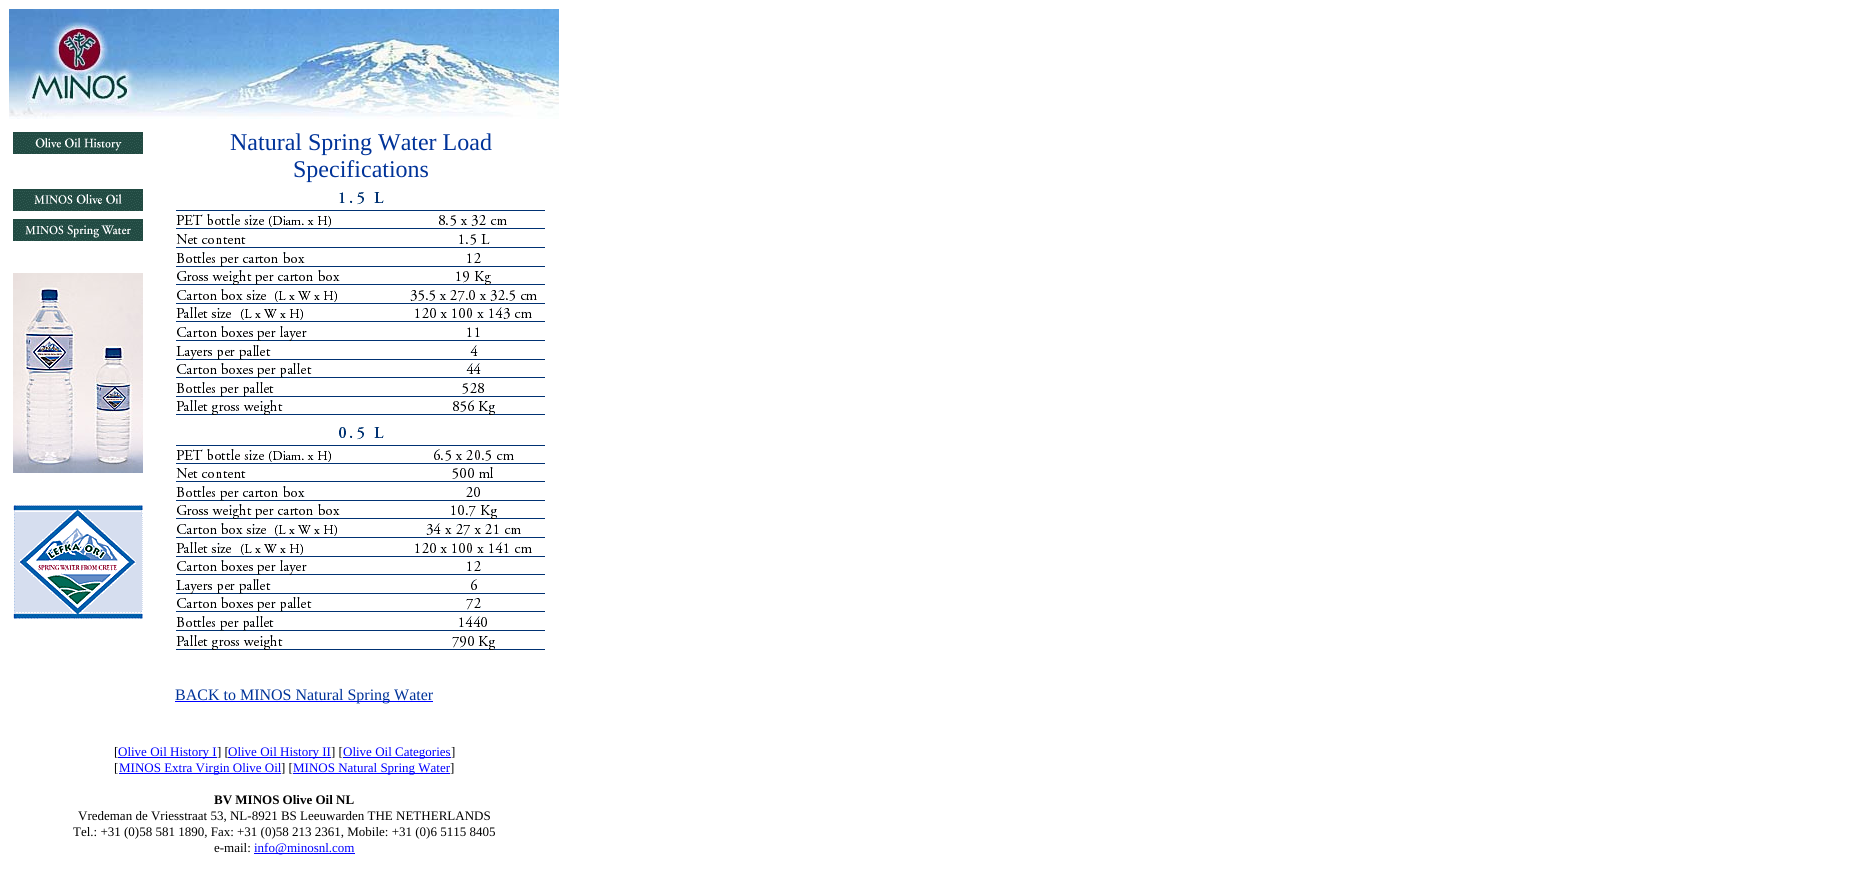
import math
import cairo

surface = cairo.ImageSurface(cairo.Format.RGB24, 1876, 874)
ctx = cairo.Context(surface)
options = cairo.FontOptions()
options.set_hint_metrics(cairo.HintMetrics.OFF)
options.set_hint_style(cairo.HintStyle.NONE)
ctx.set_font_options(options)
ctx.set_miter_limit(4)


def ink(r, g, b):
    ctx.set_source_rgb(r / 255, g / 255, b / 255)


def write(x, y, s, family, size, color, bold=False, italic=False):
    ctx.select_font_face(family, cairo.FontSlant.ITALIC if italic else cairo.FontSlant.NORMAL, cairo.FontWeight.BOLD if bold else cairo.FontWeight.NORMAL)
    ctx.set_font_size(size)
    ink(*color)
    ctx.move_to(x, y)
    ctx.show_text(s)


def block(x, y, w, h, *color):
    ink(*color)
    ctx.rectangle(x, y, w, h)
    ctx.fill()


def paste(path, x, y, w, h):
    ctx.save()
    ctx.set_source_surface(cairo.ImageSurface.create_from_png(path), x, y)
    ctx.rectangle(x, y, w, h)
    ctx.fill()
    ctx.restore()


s1 = dict(family="Liberation Serif", size=24, color=(0, 51, 153))
s2 = dict(family="Liberation Serif", size=16, color=(0, 51, 153))
s3 = dict(family="Liberation Serif", size=13, color=(0, 0, 0))
s4 = dict(family="Liberation Serif", size=13, color=(0, 0, 255))
s5 = dict(family="Liberation Serif", size=13, color=(0, 0, 0), bold=True)

ink(255, 255, 255)
ctx.paint()
paste("pic1.png", 9, 9, 550, 110)
paste("pic2.png", 13, 132, 130, 22)
write(230, 150, "Natural Spring Water Load", **s1)
write(293, 177, "Specifications", **s1)
paste("pic3.png", 13, 189, 130, 22)
paste("pic4.png", 176, 192, 369, 458)
paste("pic5.png", 13, 219, 130, 22)
paste("pic6.png", 13, 273, 130, 200)
paste("pic7.png", 13, 505, 130, 114)
block(175, 701, 258, 1, 0, 0, 255)
write(175, 700, "BACK to MINOS Natural Spring Water", **s2)
write(114, 756, "[", **s3)
block(118, 757, 99, 1, 0, 0, 255)
write(118, 756, "Olive Oil History I", **s4)
write(217, 756, "] [", **s3)
block(228, 757, 103, 1, 0, 0, 255)
write(228, 756, "Olive Oil History II", **s4)
write(331, 756, "] [", **s3)
block(343, 757, 108, 1, 0, 0, 255)
write(343, 756, "Olive Oil Categories", **s4)
write(451, 756, "]", **s3)
write(114, 772, "[", **s3)
block(119, 773, 162, 1, 0, 0, 255)
write(119, 772, "MINOS Extra Virgin Olive Oil", **s4)
write(281, 772, "] [", **s3)
block(293, 773, 157, 1, 0, 0, 255)
write(293, 772, "MINOS Natural Spring Water", **s4)
write(450, 772, "]", **s3)
write(214, 804, "BV MINOS Olive Oil NL", **s5)
write(78, 820, "Vredeman de Vriesstraat 53, NL-8921 BS Leeuwarden THE NETHERLANDS", **s3)
write(73, 836, "Tel.: +31 (0)58 581 1890, Fax: +31 (0)58 213 2361, Mobile: +31 (0)6 5115 8405", **s3)
write(214, 852, "e-mail:", **s3)
block(254, 853, 101, 1, 0, 0, 255)
write(254, 852, "info@minosnl.com", **s4)
surface.write_to_png("screenshot.png")
